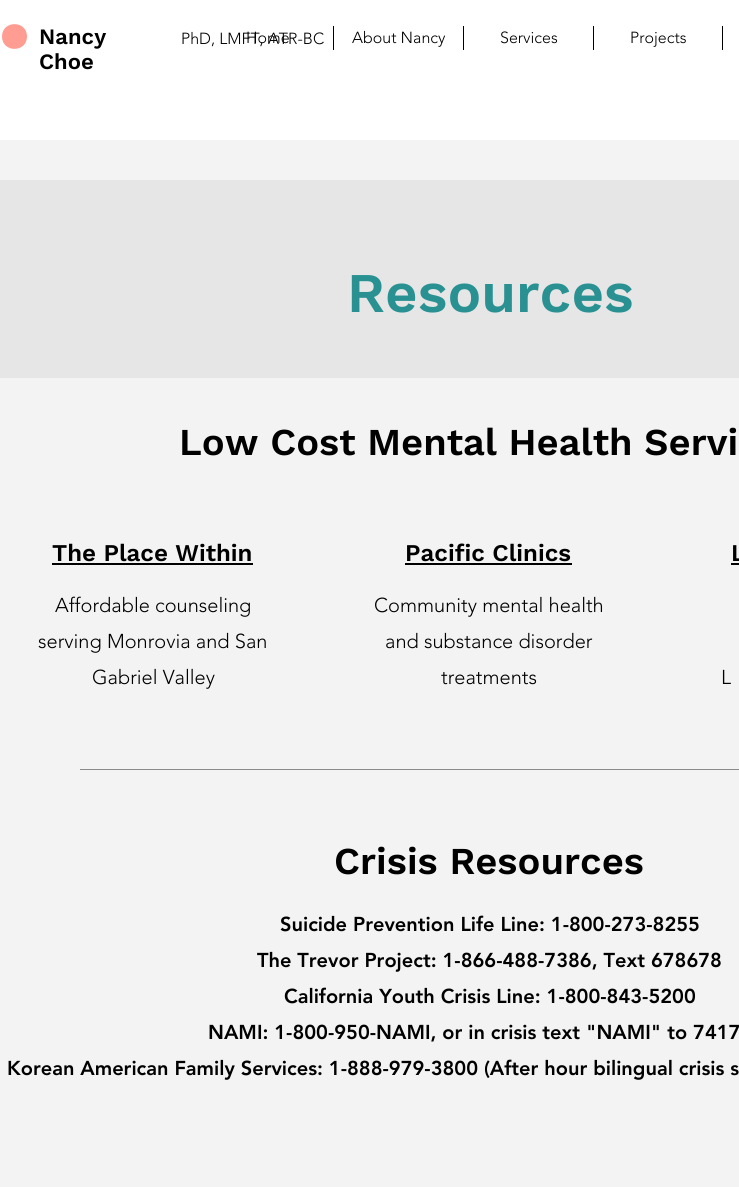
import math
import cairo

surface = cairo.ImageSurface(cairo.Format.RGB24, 739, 1187)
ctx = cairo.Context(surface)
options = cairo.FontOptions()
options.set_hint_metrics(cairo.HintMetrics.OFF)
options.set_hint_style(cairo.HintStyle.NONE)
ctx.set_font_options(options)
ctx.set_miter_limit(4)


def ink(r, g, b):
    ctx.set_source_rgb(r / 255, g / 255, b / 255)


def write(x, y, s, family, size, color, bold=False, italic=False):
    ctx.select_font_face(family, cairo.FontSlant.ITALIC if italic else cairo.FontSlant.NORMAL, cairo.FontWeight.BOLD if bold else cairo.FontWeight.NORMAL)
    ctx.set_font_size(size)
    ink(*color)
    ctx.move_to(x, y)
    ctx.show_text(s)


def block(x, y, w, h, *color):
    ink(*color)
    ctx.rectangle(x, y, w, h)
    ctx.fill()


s1 = dict(family="Work Sans SemiBold", size=22, color=(0, 0, 0))
s2 = dict(family="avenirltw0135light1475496 Light", size=16, color=(0, 0, 0))
s3 = dict(family="Work Sans SemiBold", size=56, color=(42, 145, 146))
s4 = dict(family="Work Sans SemiBold", size=38, color=(0, 0, 0))
s5 = dict(family="Work Sans SemiBold", size=24, color=(0, 0, 0))
s6 = dict(family="avenirltw0135light1475496 Light", size=20, color=(0, 0, 0))
s7 = dict(family="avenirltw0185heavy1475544 Black", size=20, color=(0, 0, 0))

ink(243, 243, 243)
ctx.paint()
block(0, 0, 739, 140, 255, 255, 255)
ink(255, 157, 146)
ctx.new_path()
ctx.move_to(27, 36.5)
ctx.curve_to(27, 53, 2, 53, 2, 36.5)
ctx.curve_to(2, 20, 27, 20, 27, 36.5)
ctx.close_path()
ctx.fill()
write(39, 44, "Nancy", **s1)
write(39, 69, "Choe", **s1)
write(181, 44, "PhD, LMFT, ATR-BC", **s2)
write(246, 43, "Home", **s2)
block(333, 26, 1, 24, 0, 0, 0)
write(352, 43, "About Nancy", **s2)
block(463, 26, 1, 24, 0, 0, 0)
write(500, 43, "Services", **s2)
block(593, 26, 1, 24, 0, 0, 0)
write(630, 43, "Projects", **s2)
block(722, 26, 1, 24, 0, 0, 0)
block(0, 180, 739, 198, 230, 230, 230)
write(347, 312, "Resources", **s3)
write(179, 455, "Low Cost Mental Health Servi", **s4)
write(52, 561, "The Place Within", **s5)
block(52, 563, 201, 2, 0, 0, 0)
write(55, 612, "Affordable counseling", **s6)
write(38, 648, "serving Monrovia and San", **s6)
write(92, 684, "Gabriel Valley", **s6)
write(405, 561, "Pacific Clinics", **s5)
block(405, 563, 167, 2, 0, 0, 0)
write(374, 612, "Community mental health", **s6)
write(385, 648, "and substance disorder", **s6)
write(441, 684, "treatments", **s6)
write(731, 561, "L", **s5)
block(731, 563, 8, 2, 0, 0, 0)
write(721, 684, "L", **s6)
block(80, 769, 659, 1, 138, 138, 138)
write(334, 874, "Crisis Resources", **s4)
write(280, 931, "Suicide Prevention Life Line: 1-800-273-8255", **s7)
write(257, 967, "The Trevor Project: 1-866-488-7386, Text 678678", **s7)
write(284, 1003, "California Youth Crisis Line: 1-800-843-5200", **s7)
write(208, 1039, "NAMI: 1-800-950-NAMI, or in crisis text \"NAMI\" to 7417", **s7)
write(7, 1075, "Korean American Family Services: 1-888-979-3800 (After hour bilingual crisis s", **s7)
surface.write_to_png("screenshot.png")
